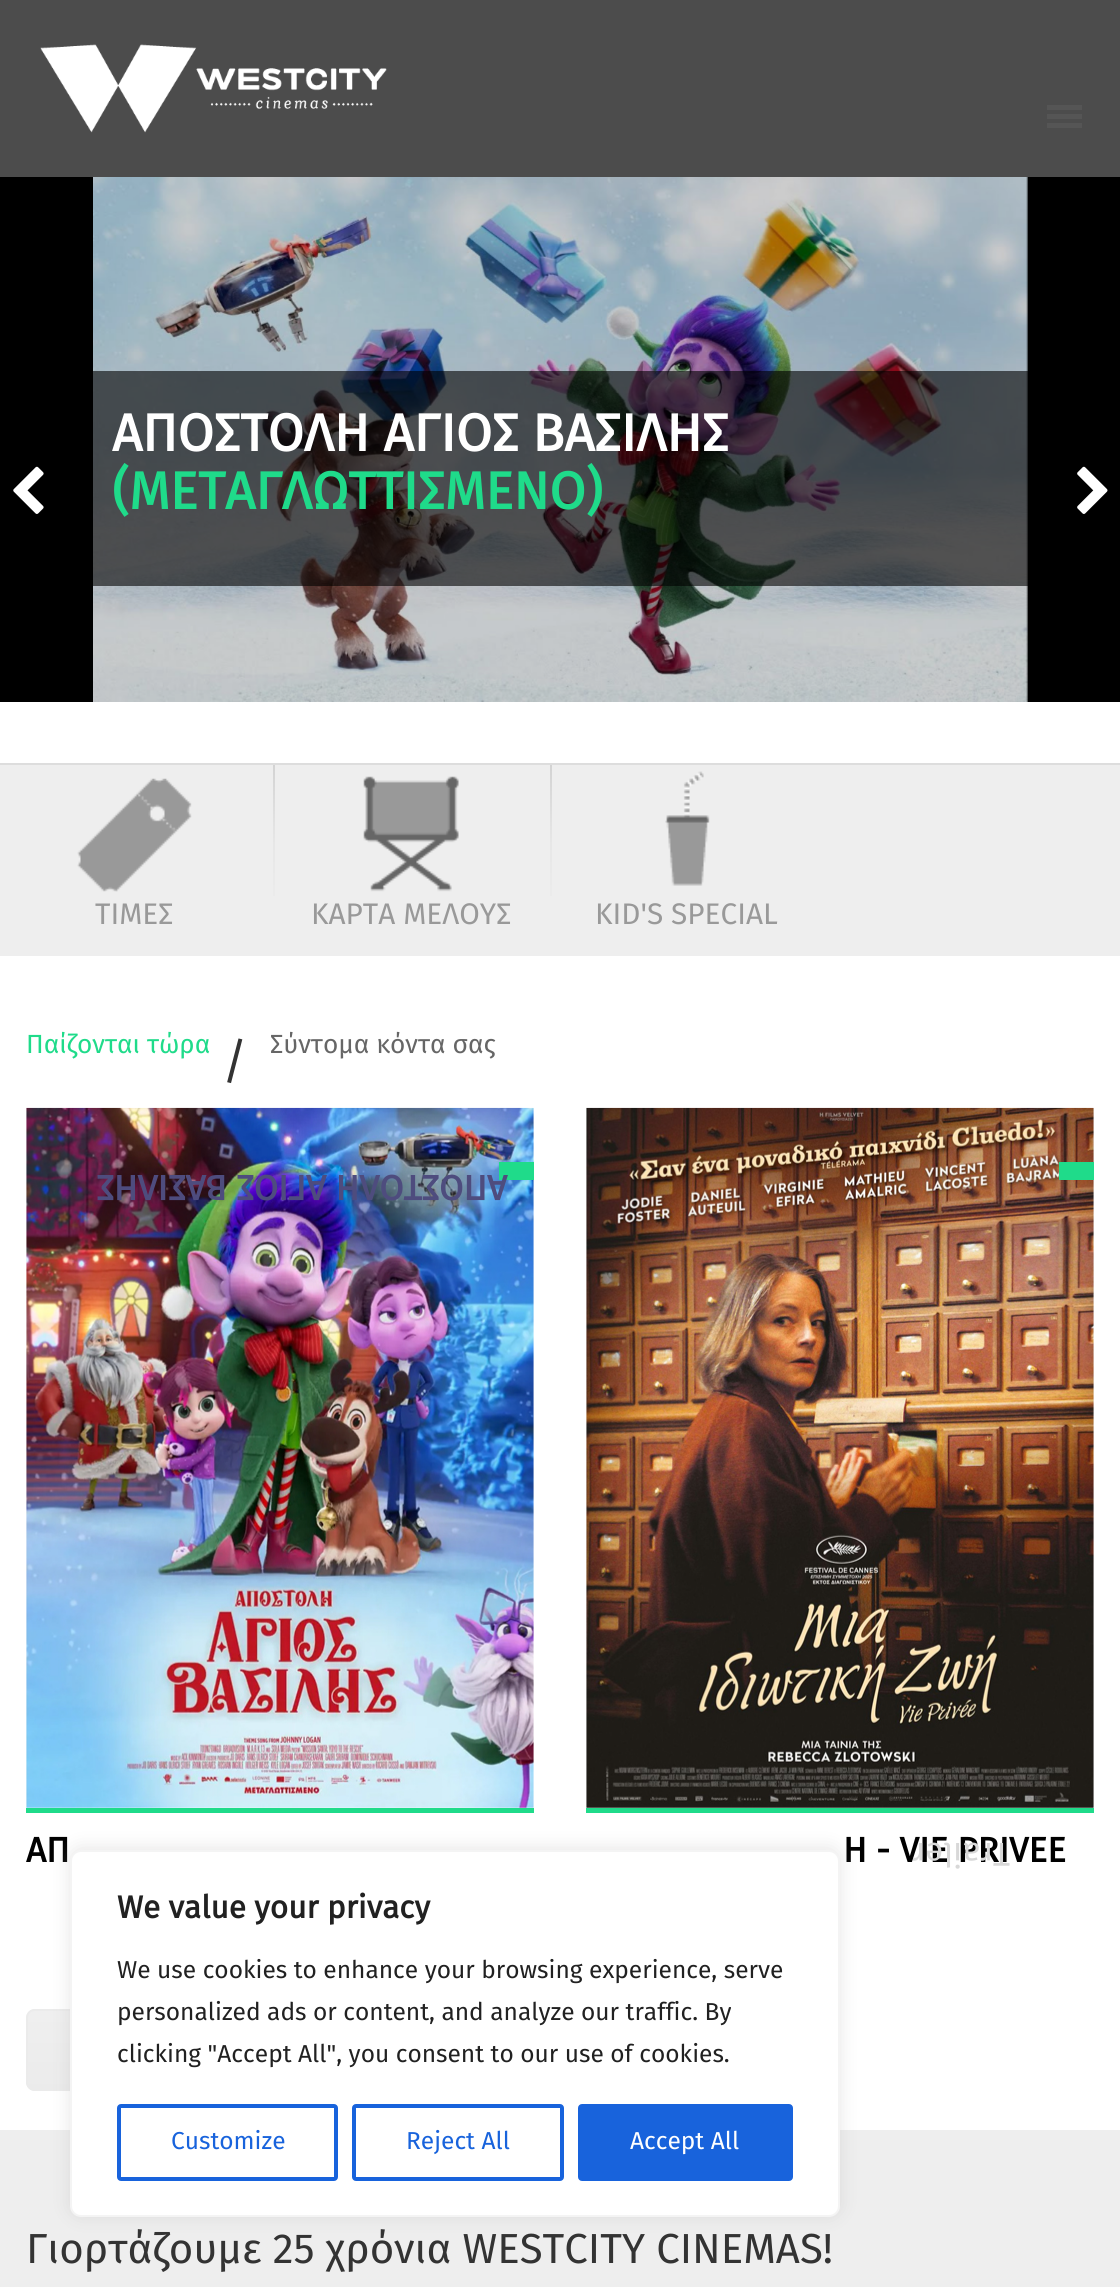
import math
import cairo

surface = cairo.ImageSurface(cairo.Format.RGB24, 1120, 2287)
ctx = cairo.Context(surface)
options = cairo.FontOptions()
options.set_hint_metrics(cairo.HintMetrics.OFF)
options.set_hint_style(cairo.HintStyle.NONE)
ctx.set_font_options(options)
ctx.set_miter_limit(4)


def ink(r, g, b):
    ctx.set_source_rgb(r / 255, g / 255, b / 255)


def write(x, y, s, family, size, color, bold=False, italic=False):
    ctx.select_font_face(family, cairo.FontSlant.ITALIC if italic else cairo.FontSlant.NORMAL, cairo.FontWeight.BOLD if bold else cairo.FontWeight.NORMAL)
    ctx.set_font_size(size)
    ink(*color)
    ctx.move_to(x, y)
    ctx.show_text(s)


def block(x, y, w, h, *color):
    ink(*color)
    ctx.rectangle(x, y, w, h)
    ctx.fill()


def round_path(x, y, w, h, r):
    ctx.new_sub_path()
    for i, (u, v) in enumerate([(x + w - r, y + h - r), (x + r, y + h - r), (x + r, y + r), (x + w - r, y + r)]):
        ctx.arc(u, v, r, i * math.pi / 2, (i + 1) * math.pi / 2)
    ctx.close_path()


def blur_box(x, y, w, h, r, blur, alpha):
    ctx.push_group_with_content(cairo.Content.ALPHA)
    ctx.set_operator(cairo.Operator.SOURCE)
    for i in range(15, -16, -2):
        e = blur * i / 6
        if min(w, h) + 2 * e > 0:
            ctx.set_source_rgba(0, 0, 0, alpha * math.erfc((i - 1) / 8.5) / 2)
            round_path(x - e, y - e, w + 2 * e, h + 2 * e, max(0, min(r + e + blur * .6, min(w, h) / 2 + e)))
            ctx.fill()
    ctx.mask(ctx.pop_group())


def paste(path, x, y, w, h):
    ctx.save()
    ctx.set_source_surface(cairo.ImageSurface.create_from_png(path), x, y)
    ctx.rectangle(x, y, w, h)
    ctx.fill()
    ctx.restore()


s1 = dict(family="Fira Sans", size=52.5, color=(255, 255, 255), bold=True)
s2 = dict(family="Fira Sans", size=52.5, color=(31, 219, 138), bold=True)
s3 = dict(family="Fira Sans", size=29.75, color=(153, 153, 153))
s4 = dict(family="Fira Sans", size=26.25, color=(31, 219, 138))
s5 = dict(family="Fira Sans", size=49, color=(51, 51, 51))
s6 = dict(family="Fira Sans", size=26.25, color=(102, 102, 102))
s7 = dict(family="Fira Sans", size=35, color=(78, 76, 126), bold=True)
s8 = dict(family="Fira Sans", size=35, color=(0, 0, 0), bold=True)
s9 = dict(family="Fira Sans", size=33, color=(216, 216, 216))
s10 = dict(family="Fira Sans", size=42, color=(51, 51, 51))
s11 = dict(family="Fira Sans", size=31.5, color=(33, 33, 33), bold=True)
s12 = dict(family="Fira Sans", size=24.5, color=(33, 33, 33))
s13 = dict(family="Fira Sans", size=24.5, color=(24, 99, 220))
s14 = dict(family="Fira Sans", size=24.5, color=(255, 255, 255))

ink(255, 255, 255)
ctx.paint()
ctx.save()
ctx.set_fill_rule(cairo.FillRule.EVEN_ODD)
ctx.new_path()
ctx.move_to(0, 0)
ctx.line_to(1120, 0)
ctx.line_to(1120, 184)
ctx.line_to(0, 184)
ctx.close_path()
ctx.move_to(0, 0)
ctx.line_to(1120, 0)
ctx.line_to(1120, 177)
ctx.line_to(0, 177)
ctx.close_path()
ctx.clip()
ink(0, 0, 0)
blur_box(2, -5, 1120, 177, 0, 3.5, 1)
ctx.restore()
ctx.set_source_rgba(0, 0, 0, 0.7)
ctx.rectangle(0, 0, 1120, 177)
ctx.fill()
paste("pic1.png", 40, 44, 347, 89)
block(1047, 114, 35, 5, 85, 85, 85)
block(1047, 105, 35, 5, 85, 85, 85)
block(1047, 123, 35, 5, 85, 85, 85)
block(0, 177, 1120, 525, 0, 0, 0)
paste("pic2.png", 13, 466, 31, 48)
paste("pic3.png", 93, 177, 935, 525)
ctx.set_source_rgba(0, 0, 0, 0.6)
ctx.rectangle(93, 371, 935, 215)
ctx.fill()
write(112, 451, "ΑΠΟΣΤΟΛΗ ΑΓΙΟΣ ΒΑΣΙΛΗΣ", **s1)
write(112, 509, "(ΜΕΤΑΓΛΩΤΤΙΣΜΕΝΟ)", **s2)
paste("pic4.png", 1077, 466, 31, 48)
block(0, 765, 1120, 191, 238, 238, 238)
block(0, 763, 1120, 2, 221, 221, 221)
paste("pic5.png", 77, 778, 115, 114)
write(95, 924, "ΤΙΜΕΣ", **s3)
gradient = cairo.LinearGradient(274, 765, 274, 914)
gradient.add_color_stop_rgba(0, 0.827, 0.827, 0.827, 1)
gradient.add_color_stop_rgba(0.53, 0.906, 0.906, 0.906, 1)
gradient.add_color_stop_rgba(1, 0.929, 0.929, 0.929, 1)
ctx.set_source(gradient)
ctx.rectangle(273, 765, 2, 131)
ctx.fill()
paste("pic6.png", 363, 776, 96, 116)
write(311, 924, "ΚΑΡΤΑ ΜΕΛΟΥΣ", **s3)
gradient = cairo.LinearGradient(550, 765, 550, 914)
gradient.add_color_stop_rgba(0, 0.827, 0.827, 0.827, 1)
gradient.add_color_stop_rgba(0.53, 0.906, 0.906, 0.906, 1)
gradient.add_color_stop_rgba(1, 0.929, 0.929, 0.929, 1)
ctx.set_source(gradient)
ctx.rectangle(550, 765, 2, 131)
ctx.fill()
paste("pic7.png", 665, 771, 45, 115)
write(595, 924, "KID'S SPECIAL", **s3)
write(26, 1053, "Παίζονται τώρα", **s4)
write(222, 1078, "/", **s5)
write(270, 1053, "Σύντομα κόντα σας", **s6)
block(26, 1808, 508, 5, 31, 219, 138)
paste("pic8.png", 26, 1107, 508, 701)
block(499, 1162, 35, 18, 31, 219, 138)
ctx.save()
ctx.translate(508, 1175)
ctx.rotate(180 * math.pi / 180)
write(0, 0, "ΑΠΟΣΤΟΛΗ ΑΓΙΟΣ ΒΑΣΙΛΗΣ", **s7)
ctx.restore()
write(26, 1862, "ΑΠ", **s8)
block(586, 1808, 508, 5, 31, 219, 138)
paste("pic9.png", 586, 1107, 508, 701)
block(1059, 1162, 35, 18, 31, 219, 138)
write(843, 1862, "Η - VIE PRIVEE", **s8)
ctx.save()
ctx.translate(1010, 1843)
ctx.rotate(180 * math.pi / 180)
write(0, 0, "Trailer", **s9)
ctx.restore()
ink(235, 235, 235)
round_path(26, 2009, 251, 82, 9)
ctx.fill()
ctx.save()
round_path(26, 2009, 251, 82, 9)
ctx.clip()
gradient = cairo.LinearGradient(151, 2011, 151, 2090)
gradient.add_color_stop_rgba(0, 1, 1, 1, 0.2)
gradient.add_color_stop_rgba(1, 1, 1, 1, 0.01)
ctx.set_source(gradient)
ctx.rectangle(26, 2011, 44, 74)
ctx.fill()
ctx.restore()
round_path(27, 2010, 249, 80, 8)
ctx.stroke()
block(0, 2130, 1120, 157, 238, 238, 238)
write(26, 2263, "Γιορτάζουμε 25 χρόνια WESTCITY CINEMAS!", **s10)
ink(172, 171, 171)
blur_box(70, 1848, 770, 368, 11, 9, 0.3)
ink(255, 255, 255)
round_path(71, 1851, 768, 365, 10)
ctx.fill_preserve()
ink(244, 244, 244)
ctx.stroke()
write(117, 1918, "We value your privacy", **s11)
write(117, 1978, "We use cookies to enhance your browsing experience, serve", **s12)
write(117, 2020, "personalized ads or content, and analyze our traffic. By", **s12)
write(117, 2062, "clicking \"Accept All\", you consent to our use of cookies.", **s12)
round_path(119, 2106, 217, 73, 2)
ink(24, 99, 220)
ctx.set_line_width(4)
ctx.stroke()
write(171, 2149, "Customize", **s13)
round_path(354, 2106, 208, 73, 2)
ctx.stroke()
write(406, 2149, "Reject All", **s13)
round_path(580, 2106, 211, 73, 2)
ctx.fill_preserve()
ctx.stroke()
write(630, 2149, "Accept All", **s14)
surface.write_to_png("screenshot.png")
